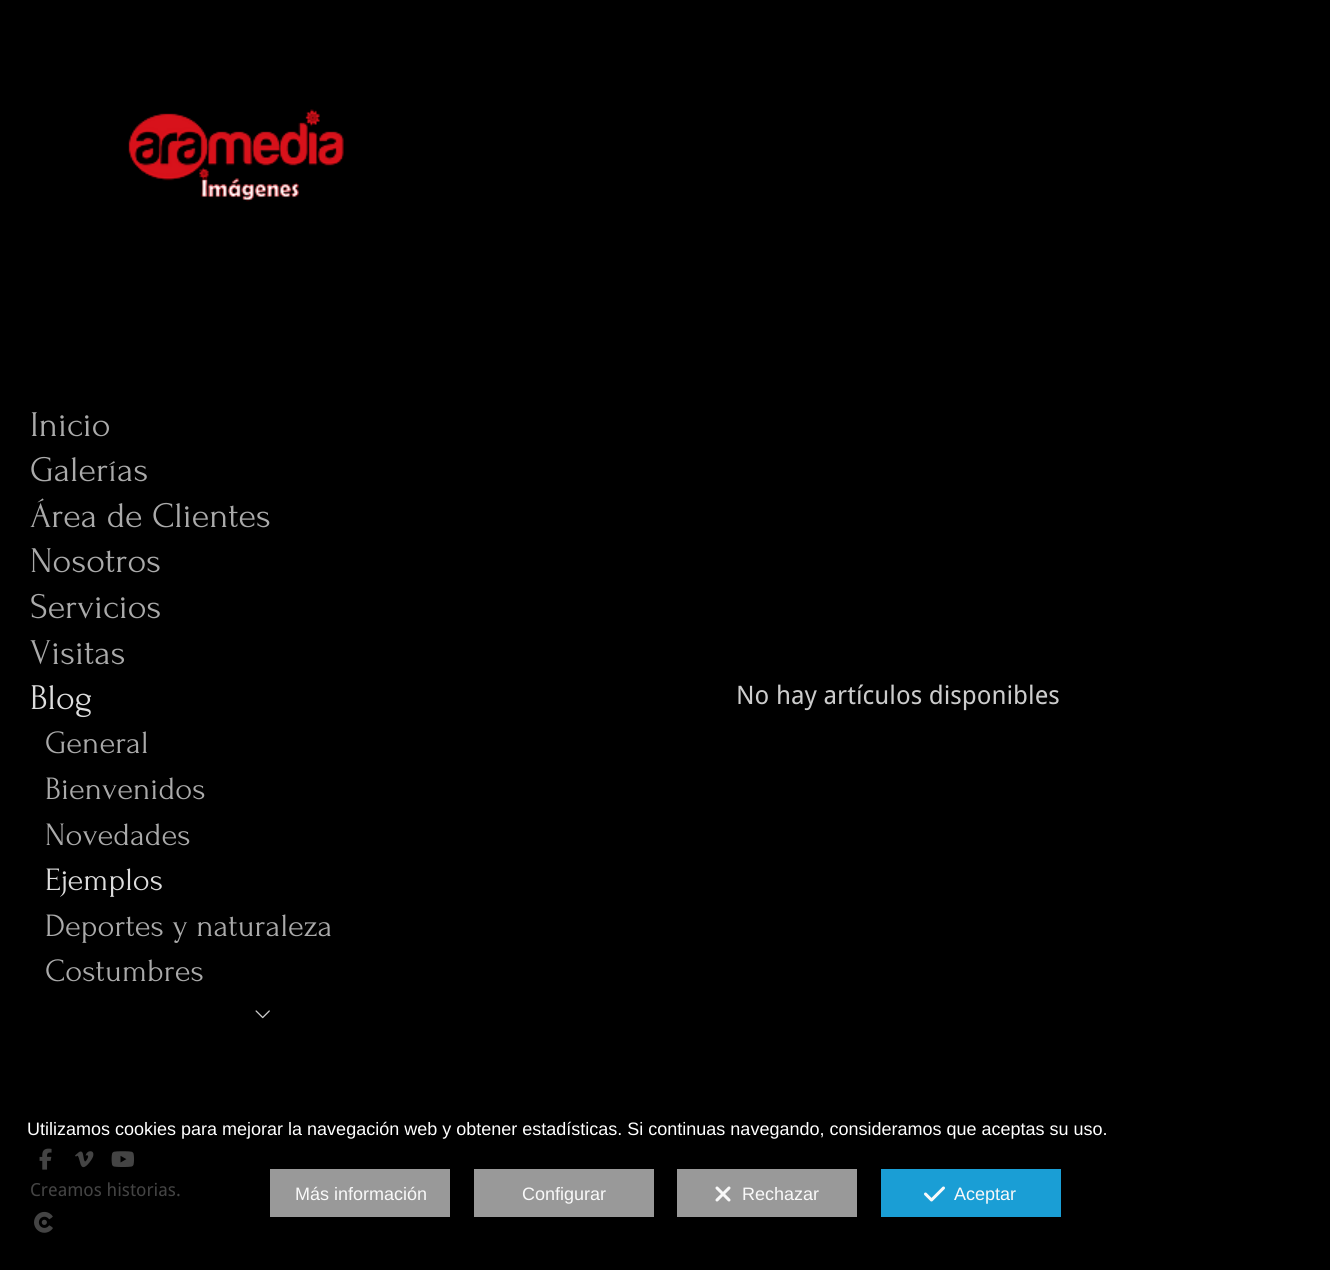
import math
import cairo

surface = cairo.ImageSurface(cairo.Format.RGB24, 1330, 1270)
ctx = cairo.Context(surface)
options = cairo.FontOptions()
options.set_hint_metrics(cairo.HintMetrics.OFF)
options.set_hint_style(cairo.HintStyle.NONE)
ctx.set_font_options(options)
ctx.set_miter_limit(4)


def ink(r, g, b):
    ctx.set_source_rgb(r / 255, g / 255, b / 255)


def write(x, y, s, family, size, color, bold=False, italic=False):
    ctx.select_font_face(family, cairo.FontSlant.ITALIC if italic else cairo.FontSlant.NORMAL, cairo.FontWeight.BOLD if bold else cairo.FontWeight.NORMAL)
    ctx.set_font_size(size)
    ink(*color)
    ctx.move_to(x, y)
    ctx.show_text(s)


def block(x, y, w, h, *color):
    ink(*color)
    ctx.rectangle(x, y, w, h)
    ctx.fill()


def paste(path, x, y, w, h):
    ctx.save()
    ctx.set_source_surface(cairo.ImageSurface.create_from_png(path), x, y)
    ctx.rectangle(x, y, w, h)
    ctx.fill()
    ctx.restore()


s1 = dict(family="Forum", size=36, color=(170, 170, 170))
s2 = dict(family="Forum", size=36, color=(221, 221, 221))
s3 = dict(family="Forum", size=32.5, color=(170, 170, 170))
s4 = dict(family="Forum", size=32.5, color=(221, 221, 221))
s5 = dict(family="Droid Sans", size=25.5, color=(204, 204, 204))
s6 = dict(family="Droid Sans", size=18, color=(68, 68, 68))
s7 = dict(family="Liberation Sans", size=18, color=(255, 255, 255))
s8 = dict(family="Liberation Sans", size=18, color=(249, 249, 249))

ink(0, 0, 0)
ctx.paint()
paste("pic1.png", 128, 109, 216, 93)
write(30, 436, "Inicio", **s1)
write(30, 481, "Galerías", **s1)
write(30, 527, "Área de Clientes", **s1)
write(30, 572, "Nosotros", **s1)
write(30, 618, "Servicios", **s1)
write(30, 664, "Visitas", **s1)
write(30, 709, "Blog", **s2)
write(45, 753, "General", **s3)
write(45, 799, "Bienvenidos", **s3)
write(45, 845, "Novedades", **s3)
write(45, 890, "Ejemplos", **s4)
write(45, 936, "Deportes y naturaleza", **s3)
write(45, 981, "Costumbres", **s3)
paste("pic2.png", 255, 1010, 15, 9)
write(736, 704, "No hay artículos disponibles", **s5)
paste("pic3.png", 39, 1148, 13, 22)
paste("pic4.png", 75, 1151, 19, 17)
paste("pic5.png", 111, 1151, 23, 16)
write(30, 1196, "Creamos historias.", **s6)
paste("pic6.png", 34, 1211, 19, 22)
write(27, 1135, "Utilizamos cookies para mejorar la navegación web y obtener estadísticas. Si continuas navegando, consideramos que aceptas su uso.", **s7)
block(270, 1169, 180, 48, 153, 153, 153)
write(295, 1200, "Más información", **s8)
block(474, 1169, 180, 48, 153, 153, 153)
write(522, 1200, "Configurar", **s8)
block(677, 1169, 180, 48, 153, 153, 153)
paste("pic7.png", 715, 1186, 16, 16)
write(742, 1200, "Rechazar", **s8)
block(881, 1169, 180, 48, 26, 158, 213)
paste("pic8.png", 924, 1186, 21, 16)
write(954, 1200, "Aceptar", **s8)
surface.write_to_png("screenshot.png")
